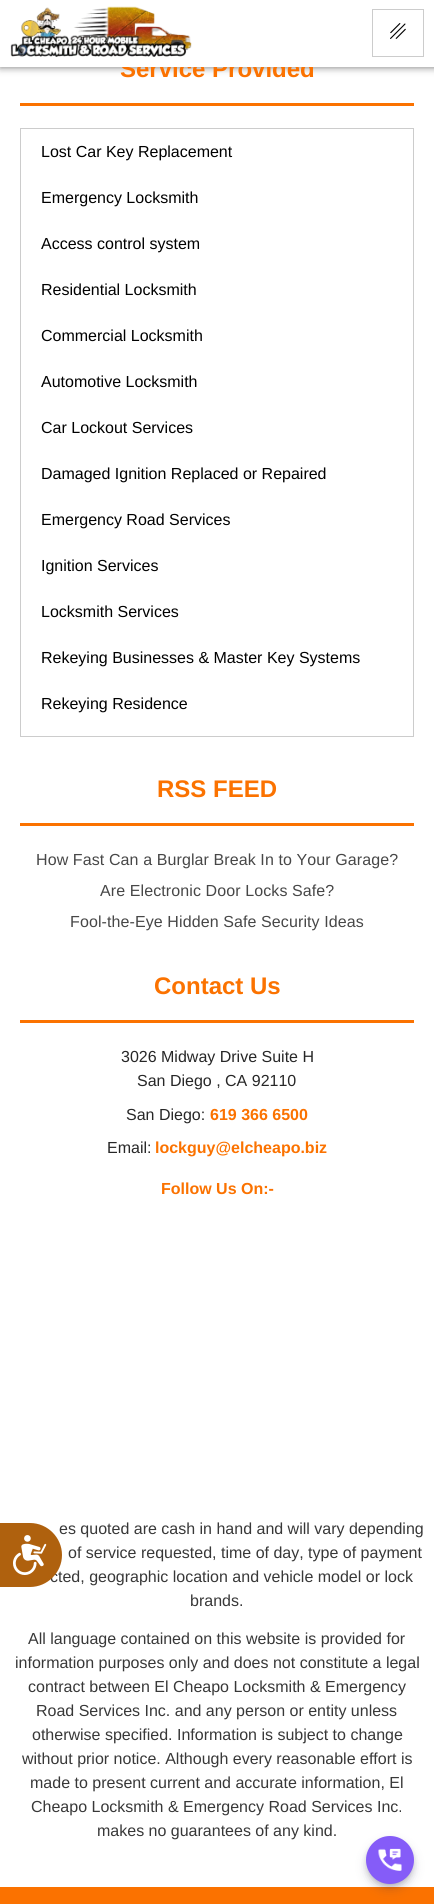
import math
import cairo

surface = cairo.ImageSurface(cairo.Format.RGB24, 434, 1904)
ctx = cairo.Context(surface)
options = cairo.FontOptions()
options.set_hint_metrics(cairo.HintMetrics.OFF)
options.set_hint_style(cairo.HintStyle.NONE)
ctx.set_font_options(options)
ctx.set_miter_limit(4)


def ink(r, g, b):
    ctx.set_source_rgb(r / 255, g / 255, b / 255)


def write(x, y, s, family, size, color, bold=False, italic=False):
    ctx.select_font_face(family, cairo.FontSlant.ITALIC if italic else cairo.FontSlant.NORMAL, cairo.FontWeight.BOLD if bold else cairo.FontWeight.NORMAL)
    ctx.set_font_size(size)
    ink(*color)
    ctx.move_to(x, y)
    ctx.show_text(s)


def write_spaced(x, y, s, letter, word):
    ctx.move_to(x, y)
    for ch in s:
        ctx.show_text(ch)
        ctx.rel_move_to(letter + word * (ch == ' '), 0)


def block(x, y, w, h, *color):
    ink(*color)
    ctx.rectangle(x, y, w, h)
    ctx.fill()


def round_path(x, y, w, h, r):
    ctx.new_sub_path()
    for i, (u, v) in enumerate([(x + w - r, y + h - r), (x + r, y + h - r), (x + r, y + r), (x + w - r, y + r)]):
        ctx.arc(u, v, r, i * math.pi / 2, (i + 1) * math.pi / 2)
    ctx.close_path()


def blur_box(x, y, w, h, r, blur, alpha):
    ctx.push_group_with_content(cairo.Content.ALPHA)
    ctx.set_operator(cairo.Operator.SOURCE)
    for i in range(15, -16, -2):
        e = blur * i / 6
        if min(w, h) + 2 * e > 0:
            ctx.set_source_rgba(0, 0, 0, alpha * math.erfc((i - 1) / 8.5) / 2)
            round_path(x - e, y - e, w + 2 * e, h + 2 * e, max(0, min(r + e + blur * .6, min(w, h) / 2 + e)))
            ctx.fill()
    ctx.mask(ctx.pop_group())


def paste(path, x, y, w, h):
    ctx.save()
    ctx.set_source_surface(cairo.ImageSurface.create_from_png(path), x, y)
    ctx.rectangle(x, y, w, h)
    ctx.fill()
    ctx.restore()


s1 = dict(family="Liberation Sans", size=24, color=(251, 114, 0), bold=True)
s2 = dict(family="Liberation Sans", size=16, color=(0, 0, 0))
s3 = dict(family="Liberation Sans", size=16, color=(39, 39, 39))
s4 = dict(family="Liberation Sans", size=16, color=(251, 114, 0), bold=True)
s5 = dict(family="Liberation Sans", size=16, color=(56, 56, 56))

ink(255, 255, 255)
ctx.paint()
ink(0, 0, 0)
blur_box(0, -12, 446, 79, 0, 4, 0.55)
write(120, 77, "Service Provided", **s1)
block(0, 0, 434, 67, 255, 255, 255)
paste("pic1.png", 10, 6, 182, 51)
ctx.rectangle(372.5, 9.5, 51, 47)
ink(204, 204, 204)
ctx.set_line_width(1)
ctx.stroke()
paste("pic2.png", 390, 23, 16, 16)
block(20, 103, 394, 3, 251, 114, 0)
ctx.rectangle(20.5, 128.5, 393, 608)
ink(204, 204, 204)
ctx.stroke()
write(41, 157, "Lost Car Key Replacement", **s2)
write(41, 203, "Emergency Locksmith", **s2)
write(41, 249, "Access control system", **s2)
write(41, 295, "Residential Locksmith", **s2)
write(41, 341, "Commercial Locksmith", **s2)
write(41, 387, "Automotive Locksmith", **s2)
write(41, 433, "Car Lockout Services", **s2)
write(41, 479, "Damaged Ignition Replaced or Repaired", **s2)
write(41, 525, "Emergency Road Services", **s2)
write(41, 571, "Ignition Services", **s2)
write(41, 617, "Locksmith Services", **s2)
write(41, 663, "Rekeying Businesses & Master Key Systems", **s2)
write(41, 709, "Rekeying Residence", **s2)
write(157, 797, "RSS FEED", **s1)
block(20, 823, 394, 3, 251, 114, 0)
ctx.select_font_face("Liberation Sans")
ctx.set_font_size(16)
ink(71, 71, 71)
write_spaced(36, 865, "How Fast Can a Burglar Break In to Your Garage?", 0.1, 0)
write_spaced(100, 896, "Are Electronic Door Locks Safe?", 0.1, 0)
write_spaced(70, 927, "Fool-the-Eye Hidden Safe Security Ideas", 0.1, 0)
write(154, 994, "Contact Us", **s1)
block(20, 1020, 394, 3, 251, 114, 0)
write(121, 1062, "3026 Midway Drive Suite H", **s3)
write(137, 1086, "San Diego , CA 92110", **s3)
write(126, 1120, "San Diego:", **s3)
write(210, 1120, "619 366 6500", **s4)
write(107, 1153, "Email:", **s3)
write(155, 1153, "lockguy@elcheapo.biz", **s4)
write(161, 1194, "Follow Us On:-", **s4)
write(59, 1534, "es quoted are cash in hand and will vary depending", **s5)
write(68, 1558, "of service requested, time of day, type of payment", **s5)
write(50, 1582, "cted, geographic location and vehicle model or lock", **s5)
write(190, 1606, "brands.", **s5)
write(28, 1644, "All language contained on this website is provided for", **s5)
write(15, 1668, "information purposes only and does not constitute a legal", **s5)
write(28, 1692, "contract between El Cheapo Locksmith & Emergency", **s5)
write(36, 1716, "Road Services Inc. and any person or entity unless", **s5)
write(32, 1740, "otherwise specified. Information is subject to change", **s5)
write(22, 1764, "without prior notice. Although every reasonable effort is", **s5)
write(30, 1788, "made to present current and accurate information, El", **s5)
write(31, 1812, "Cheapo Locksmith & Emergency Road Services Inc.", **s5)
write(97, 1836, "makes no guarantees of any kind.", **s5)
block(0, 1887, 434, 17, 251, 114, 0)
ink(175, 97, 14)
ctx.new_path()
ctx.move_to(0, 1523)
ctx.line_to(30, 1523)
ctx.curve_to(47.5, 1523, 62, 1537.5, 62, 1555)
ctx.curve_to(62, 1572.5, 47.5, 1587, 30, 1587)
ctx.line_to(0, 1587)
ctx.close_path()
ctx.fill()
paste("pic3.png", 13, 1535, 34, 40)
ink(0, 0, 0)
blur_box(369, 1842, 42, 42, 21, 3.5, 0.3)
ink(50, 50, 93)
blur_box(368, 1844, 44, 44, 22, 6, 0.25)
ink(133, 92, 248)
ctx.arc(390, 1860, 24, 0, 2 * math.pi)
ctx.fill()
paste("pic4.png", 378, 1848, 24, 23)
surface.write_to_png("screenshot.png")
